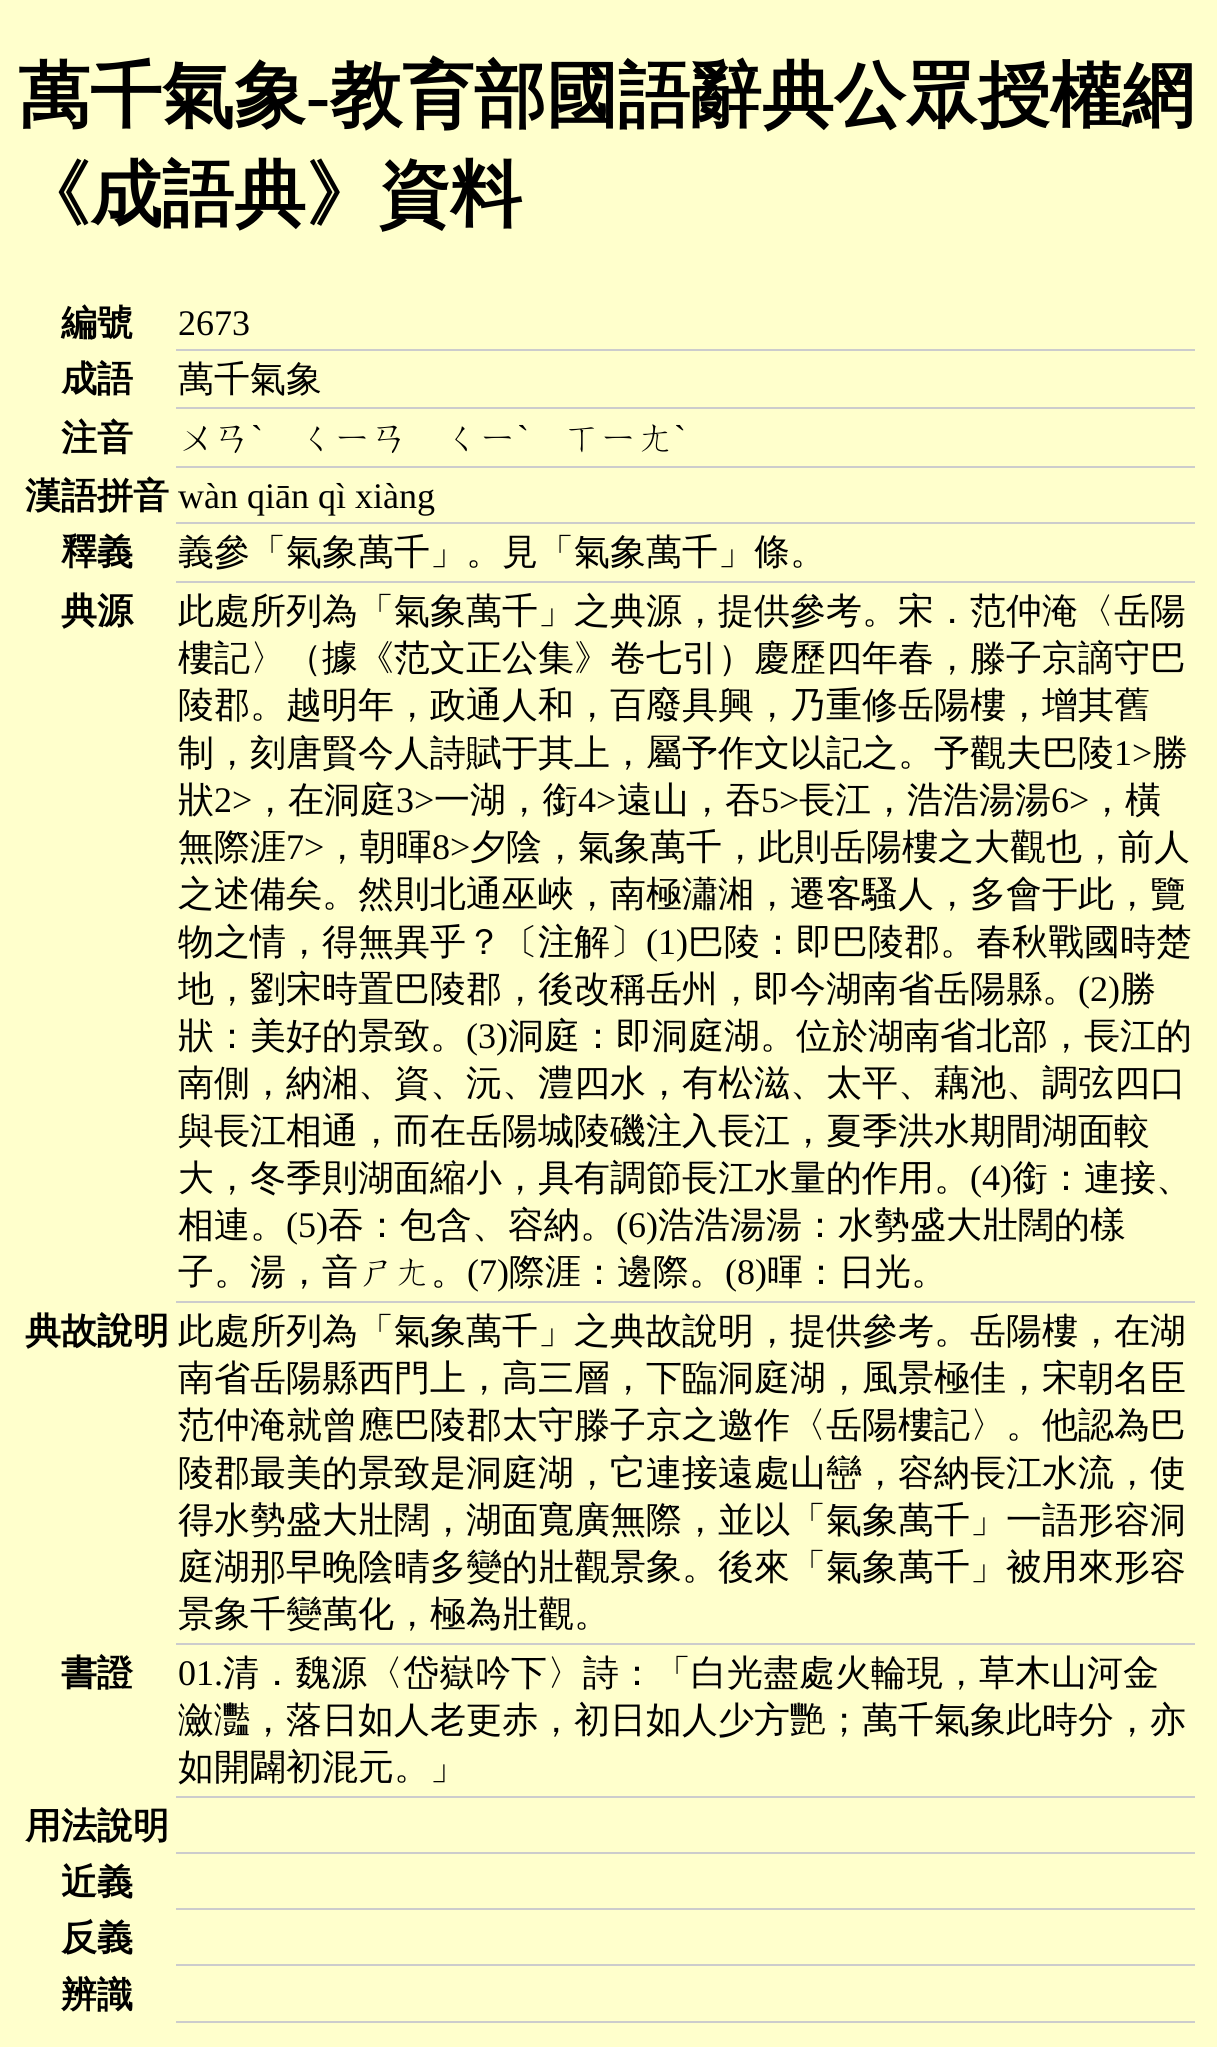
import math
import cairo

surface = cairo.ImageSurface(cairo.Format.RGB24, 1217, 2047)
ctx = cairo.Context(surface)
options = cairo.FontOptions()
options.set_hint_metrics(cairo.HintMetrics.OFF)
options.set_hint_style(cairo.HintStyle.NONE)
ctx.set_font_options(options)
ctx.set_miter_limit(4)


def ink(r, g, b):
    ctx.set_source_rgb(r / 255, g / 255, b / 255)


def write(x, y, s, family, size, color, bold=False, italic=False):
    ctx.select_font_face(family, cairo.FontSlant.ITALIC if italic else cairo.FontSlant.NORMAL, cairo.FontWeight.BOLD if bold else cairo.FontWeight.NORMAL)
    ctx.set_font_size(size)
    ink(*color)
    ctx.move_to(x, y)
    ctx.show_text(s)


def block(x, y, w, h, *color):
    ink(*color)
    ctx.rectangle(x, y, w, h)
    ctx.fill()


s1 = dict(family="WenQuanYi Zen Hei", size=72, color=(0, 0, 0), bold=True)
s2 = dict(family="Liberation Serif", size=72, color=(0, 0, 0), bold=True)
s3 = dict(family="WenQuanYi Zen Hei", size=36, color=(0, 0, 0), bold=True)
s4 = dict(family="Liberation Serif", size=36, color=(0, 0, 0))
s5 = dict(family="WenQuanYi Zen Hei Medium", size=36, color=(0, 0, 0))

ink(255, 255, 204)
ctx.paint()
write(18, 120, "萬千氣象", **s1)
write(306, 120, "-", **s2)
write(330, 120, "教育部國語辭典公眾授權網", **s1)
write(18, 219, "《成語典》資料", **s1)
write(61, 335, "編號", **s3)
block(176, 349, 1019, 2, 204, 204, 204)
write(178, 335, "2673", **s4)
write(61, 391, "成語", **s3)
block(176, 407, 1019, 2, 204, 204, 204)
write(178, 391, "萬千氣象", **s5)
write(61, 450, "注音", **s3)
block(176, 466, 1019, 2, 204, 204, 204)
write(178, 450, "ㄨㄢ", **s5)
write(251, 450, "ˋ", **s4)
write(299, 450, "ㄑㄧㄢ　ㄑㄧ", **s5)
write(517, 450, "ˋ", **s4)
write(565, 450, "ㄒㄧㄤ", **s5)
write(674, 450, "ˋ", **s4)
write(25, 508, "漢語拼音", **s3)
block(176, 522, 1019, 2, 204, 204, 204)
write(178, 508, "wàn qiān qì xiàng", **s4)
write(61, 564, "釋義", **s3)
block(176, 581, 1019, 2, 204, 204, 204)
write(178, 564, "義參「氣象萬千」。見「氣象萬千」條。", **s5)
write(61, 623, "典源", **s3)
block(176, 1301, 1019, 2, 204, 204, 204)
write(178, 623, "此處所列為「氣象萬千」之典源，提供參考。宋．范仲淹〈岳陽", **s5)
write(178, 670, "樓記〉（據《范文正公集》卷七引）慶歷四年春，滕子京謫守巴", **s5)
write(178, 717, "陵郡。越明年，政通人和，百廢具興，乃重修岳陽樓，增其舊", **s5)
write(178, 765, "制，刻唐賢今人詩賦于其上，屬予作文以記之。予觀夫巴陵", **s5)
write(1114, 765, "1>", **s4)
write(1152, 765, "勝", **s5)
write(178, 812, "狀", **s5)
write(214, 812, "2>", **s4)
write(252, 812, "，在洞庭", **s5)
write(396, 812, "3>", **s4)
write(434, 812, "一湖，銜", **s5)
write(578, 812, "4>", **s4)
write(617, 812, "遠山，吞", **s5)
write(761, 812, "5>", **s4)
write(799, 812, "長江，浩浩湯湯", **s5)
write(1051, 812, "6>", **s4)
write(1089, 812, "，橫", **s5)
write(178, 859, "無際涯", **s5)
write(286, 859, "7>", **s4)
write(324, 859, "，朝暉", **s5)
write(432, 859, "8>", **s4)
write(470, 859, "夕陰，氣象萬千，此則岳陽樓之大觀也，前人", **s5)
write(178, 906, "之述備矣。然則北通巫峽，南極瀟湘，遷客騷人，多會于此，覽", **s5)
write(178, 954, "物之情，得無異乎？〔注解〕", **s5)
write(646, 954, "(1)", **s4)
write(688, 954, "巴陵：即巴陵郡。春秋戰國時楚", **s5)
write(178, 1001, "地，劉宋時置巴陵郡，後改稱岳州，即今湖南省岳陽縣。", **s5)
write(1078, 1001, "(2)", **s4)
write(1120, 1001, "勝", **s5)
write(178, 1048, "狀：美好的景致。", **s5)
write(466, 1048, "(3)", **s4)
write(508, 1048, "洞庭：即洞庭湖。位於湖南省北部，長江的", **s5)
write(178, 1095, "南側，納湘、資、沅、澧四水，有松滋、太平、藕池、調弦四口", **s5)
write(178, 1143, "與長江相通，而在岳陽城陵磯注入長江，夏季洪水期間湖面較", **s5)
write(178, 1190, "大，冬季則湖面縮小，具有調節長江水量的作用。", **s5)
write(970, 1190, "(4)", **s4)
write(1012, 1190, "銜：連接、", **s5)
write(178, 1237, "相連。", **s5)
write(286, 1237, "(5)", **s4)
write(328, 1237, "吞：包含、容納。", **s5)
write(616, 1237, "(6)", **s4)
write(658, 1237, "浩浩湯湯：水勢盛大壯闊的樣", **s5)
write(178, 1284, "子。湯，音ㄕㄤ。", **s5)
write(467, 1284, "(7)", **s4)
write(509, 1284, "際涯：邊際。", **s5)
write(725, 1284, "(8)", **s4)
write(767, 1284, "暉：日光。", **s5)
write(25, 1343, "典故說明", **s3)
block(176, 1643, 1019, 2, 204, 204, 204)
write(178, 1343, "此處所列為「氣象萬千」之典故說明，提供參考。岳陽樓，在湖", **s5)
write(178, 1390, "南省岳陽縣西門上，高三層，下臨洞庭湖，風景極佳，宋朝名臣", **s5)
write(178, 1437, "范仲淹就曾應巴陵郡太守滕子京之邀作〈岳陽樓記〉。他認為巴", **s5)
write(178, 1485, "陵郡最美的景致是洞庭湖，它連接遠處山巒，容納長江水流，使", **s5)
write(178, 1532, "得水勢盛大壯闊，湖面寬廣無際，並以「氣象萬千」一語形容洞", **s5)
write(178, 1579, "庭湖那早晚陰晴多變的壯觀景象。後來「氣象萬千」被用來形容", **s5)
write(178, 1626, "景象千變萬化，極為壯觀。", **s5)
write(61, 1685, "書證", **s3)
block(176, 1796, 1019, 2, 204, 204, 204)
write(178, 1685, "01.", **s4)
write(223, 1685, "清．魏源〈岱嶽吟下〉詩：「白光盡處火輪現，草木山河金", **s5)
write(178, 1732, "瀲灩，落日如人老更赤，初日如人少方艷；萬千氣象此時分，亦", **s5)
write(178, 1779, "如開闢初混元。」", **s5)
write(25, 1838, "用法說明", **s3)
block(176, 1852, 1019, 2, 204, 204, 204)
write(61, 1894, "近義", **s3)
block(176, 1908, 1019, 2, 204, 204, 204)
write(61, 1950, "反義", **s3)
block(176, 1964, 1019, 2, 204, 204, 204)
write(61, 2007, "辨識", **s3)
block(176, 2021, 1019, 2, 204, 204, 204)
surface.write_to_png("screenshot.png")
